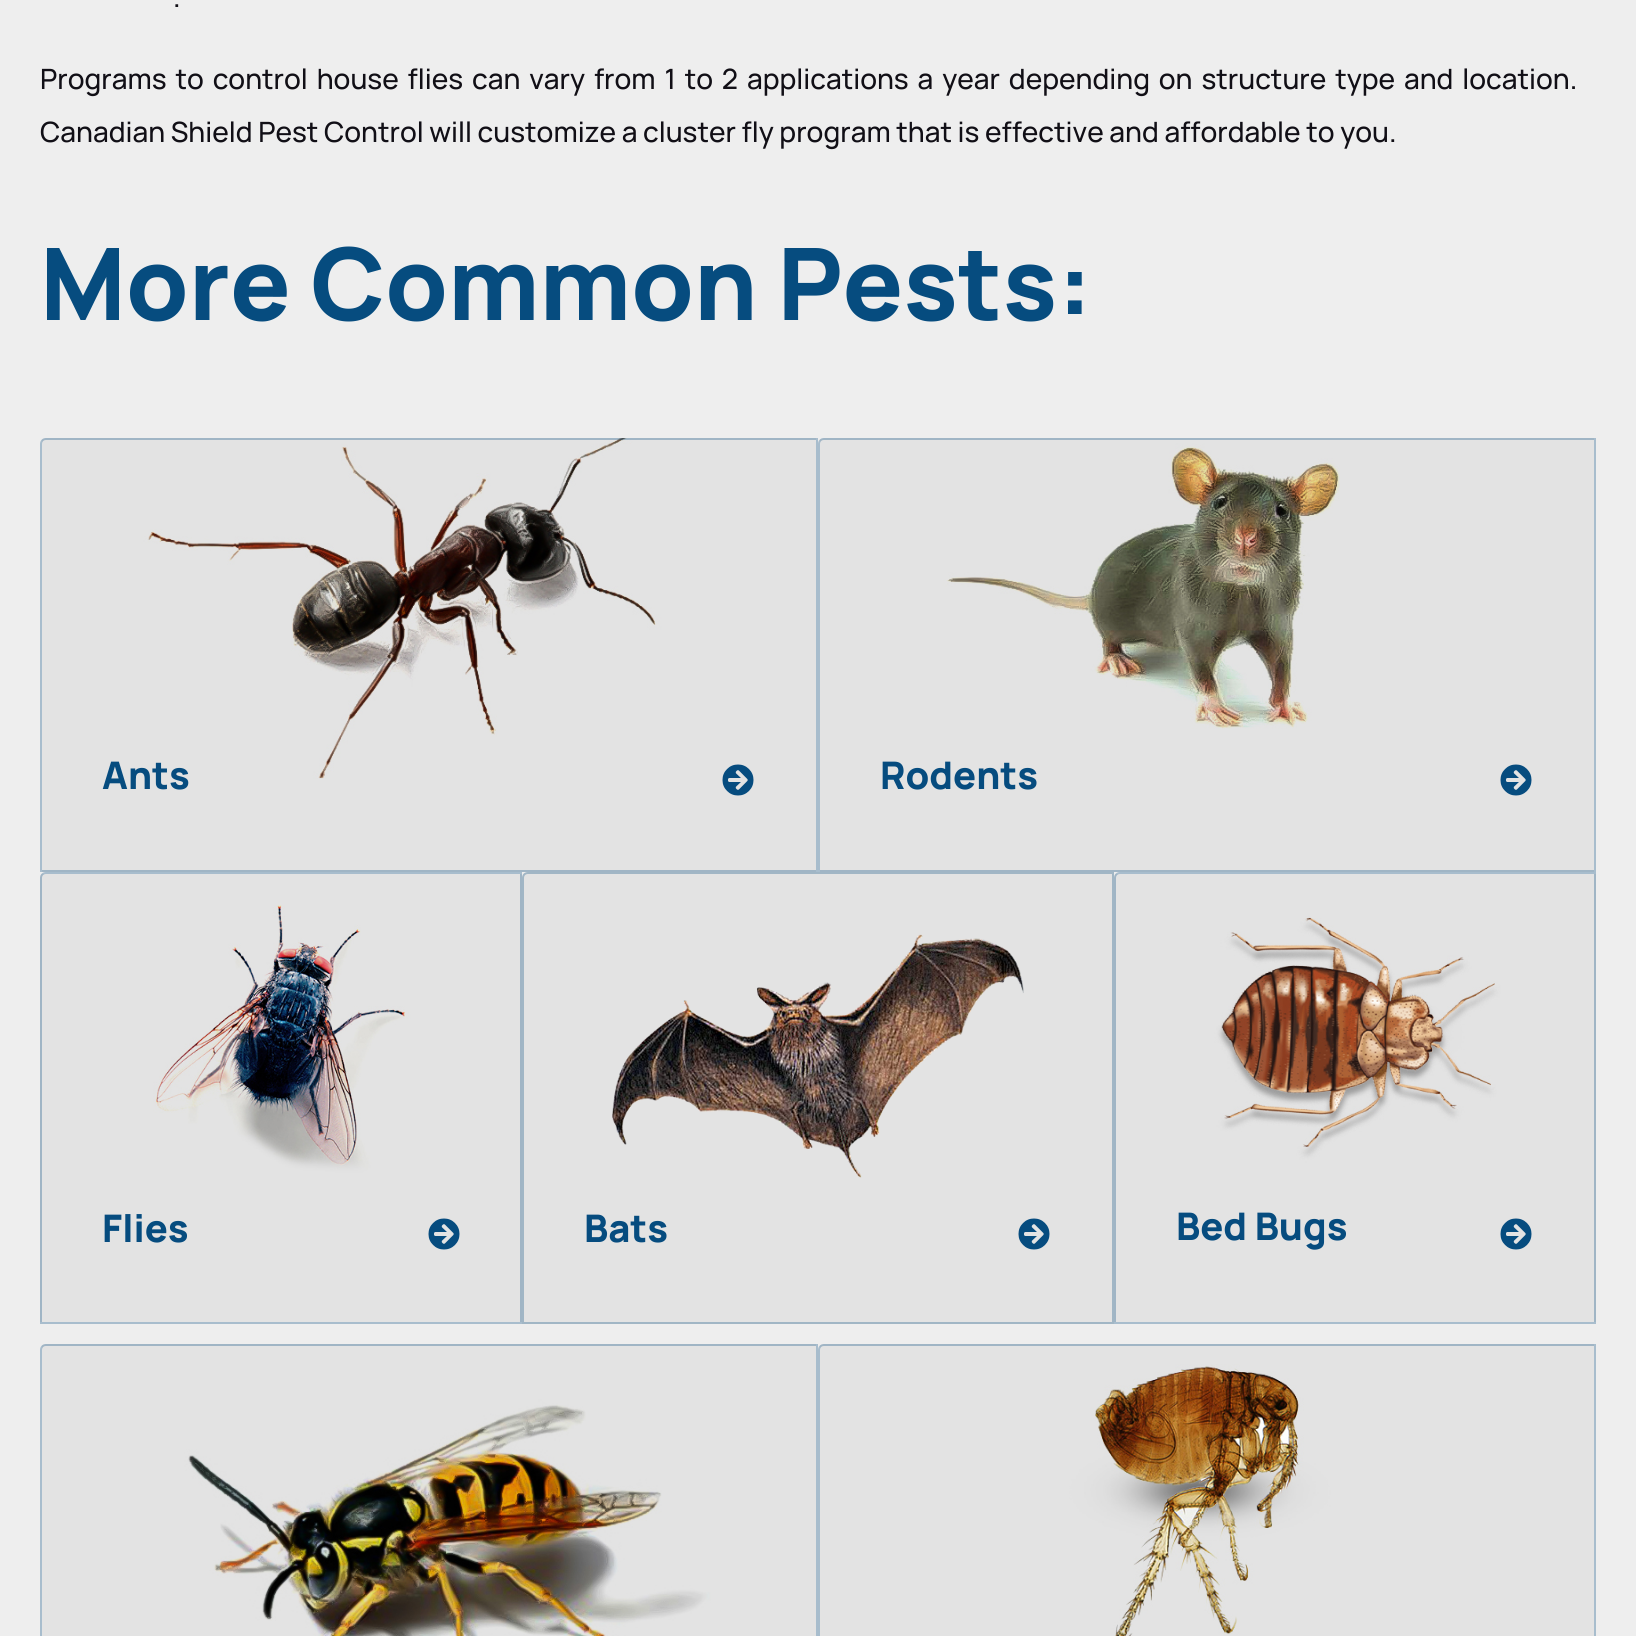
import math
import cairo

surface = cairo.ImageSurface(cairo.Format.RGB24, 1636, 1636)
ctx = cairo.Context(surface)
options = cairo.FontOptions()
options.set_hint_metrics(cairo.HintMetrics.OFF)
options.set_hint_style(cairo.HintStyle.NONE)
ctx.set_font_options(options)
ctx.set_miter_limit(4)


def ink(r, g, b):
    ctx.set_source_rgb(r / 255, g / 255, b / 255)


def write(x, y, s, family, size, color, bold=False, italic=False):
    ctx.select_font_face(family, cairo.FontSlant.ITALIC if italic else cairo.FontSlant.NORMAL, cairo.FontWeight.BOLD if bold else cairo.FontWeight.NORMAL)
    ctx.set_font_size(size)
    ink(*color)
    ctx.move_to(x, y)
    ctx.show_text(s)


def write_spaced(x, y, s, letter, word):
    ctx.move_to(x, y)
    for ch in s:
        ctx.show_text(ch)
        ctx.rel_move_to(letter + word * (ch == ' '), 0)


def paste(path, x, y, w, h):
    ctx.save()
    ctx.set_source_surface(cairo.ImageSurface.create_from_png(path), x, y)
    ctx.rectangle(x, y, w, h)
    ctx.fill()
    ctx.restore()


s1 = dict(family="Manrope Medium", size=28, color=(17, 15, 22))
s2 = dict(family="Manrope ExtraBold", size=100, color=(6, 76, 127))
s3 = dict(family="Manrope ExtraBold", size=38, color=(6, 76, 127))

ink(238, 238, 238)
ctx.paint()
write(173, 7, ".", **s1)
write_spaced(40, 89, "Programs to control house flies can vary from 1 to 2 applications a year depending on structure type and location.", 0, 3.25)
write(40, 142, "Canadian Shield Pest Control will customize a cluster fly program that is effective and affordable to you.", **s1)
write(40, 320, "More Common Pests:", **s2)
paste("pic1.png", 42, 438, 774, 434)
ctx.new_path()
ctx.move_to(46, 439)
ctx.line_to(817, 439)
ctx.line_to(817, 871)
ctx.line_to(41, 871)
ctx.line_to(41, 444)
ctx.curve_to(41, 441, 43, 439, 46, 439)
ctx.close_path()
ctx.set_source_rgba(0.024, 0.298, 0.498, 0.3)
ctx.stroke()
write(102, 789, "Ants", **s3)
paste("pic2.png", 722, 764, 32, 32)
paste("pic3.png", 820, 438, 774, 434)
ctx.new_path()
ctx.move_to(824, 439)
ctx.line_to(1595, 439)
ctx.line_to(1595, 871)
ctx.line_to(819, 871)
ctx.line_to(819, 444)
ctx.curve_to(819, 441, 821, 439, 824, 439)
ctx.close_path()
ctx.set_source_rgba(0.024, 0.298, 0.498, 0.3)
ctx.stroke()
write(880, 789, "Rodents", **s3)
paste("pic2.png", 1500, 764, 32, 32)
paste("pic4.png", 40, 874, 482, 448)
ctx.new_path()
ctx.move_to(46, 873)
ctx.line_to(521, 873)
ctx.line_to(521, 1323)
ctx.line_to(41, 1323)
ctx.line_to(41, 878)
ctx.curve_to(41, 875, 43, 873, 46, 873)
ctx.close_path()
ctx.set_source_rgba(0.024, 0.298, 0.498, 0.3)
ctx.stroke()
write(102, 1242, "Flies", **s3)
paste("pic2.png", 428, 1218, 32, 32)
ink(227, 227, 227)
ctx.new_path()
ctx.move_to(528, 873)
ctx.line_to(1113, 873)
ctx.line_to(1113, 1323)
ctx.line_to(523, 1323)
ctx.line_to(523, 878)
ctx.curve_to(523, 875, 525, 873, 528, 873)
ctx.close_path()
ctx.fill_preserve()
ink(161, 182, 197)
ctx.stroke()
paste("pic5.png", 612, 934, 412, 244)
write(584, 1242, "Bats", **s3)
paste("pic2.png", 1018, 1218, 32, 32)
paste("pic6.png", 1114, 874, 482, 448)
ctx.new_path()
ctx.move_to(1120, 873)
ctx.line_to(1595, 873)
ctx.line_to(1595, 1323)
ctx.line_to(1115, 1323)
ctx.line_to(1115, 878)
ctx.curve_to(1115, 875, 1117, 873, 1120, 873)
ctx.close_path()
ctx.set_source_rgba(0.024, 0.298, 0.498, 0.3)
ctx.stroke()
write(1176, 1240, "Bed Bugs", **s3)
paste("pic2.png", 1500, 1218, 32, 32)
paste("pic7.png", 42, 1344, 774, 292)
ctx.new_path()
ctx.move_to(46, 1345)
ctx.line_to(817, 1345)
ctx.line_to(817, 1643)
ctx.line_to(41, 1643)
ctx.line_to(41, 1350)
ctx.curve_to(41, 1347, 43, 1345, 46, 1345)
ctx.close_path()
ctx.set_source_rgba(0.024, 0.298, 0.498, 0.3)
ctx.stroke()
paste("pic8.png", 820, 1344, 774, 292)
ctx.new_path()
ctx.move_to(824, 1345)
ctx.line_to(1595, 1345)
ctx.line_to(1595, 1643)
ctx.line_to(819, 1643)
ctx.line_to(819, 1350)
ctx.curve_to(819, 1347, 821, 1345, 824, 1345)
ctx.close_path()
ctx.stroke()
surface.write_to_png("screenshot.png")
